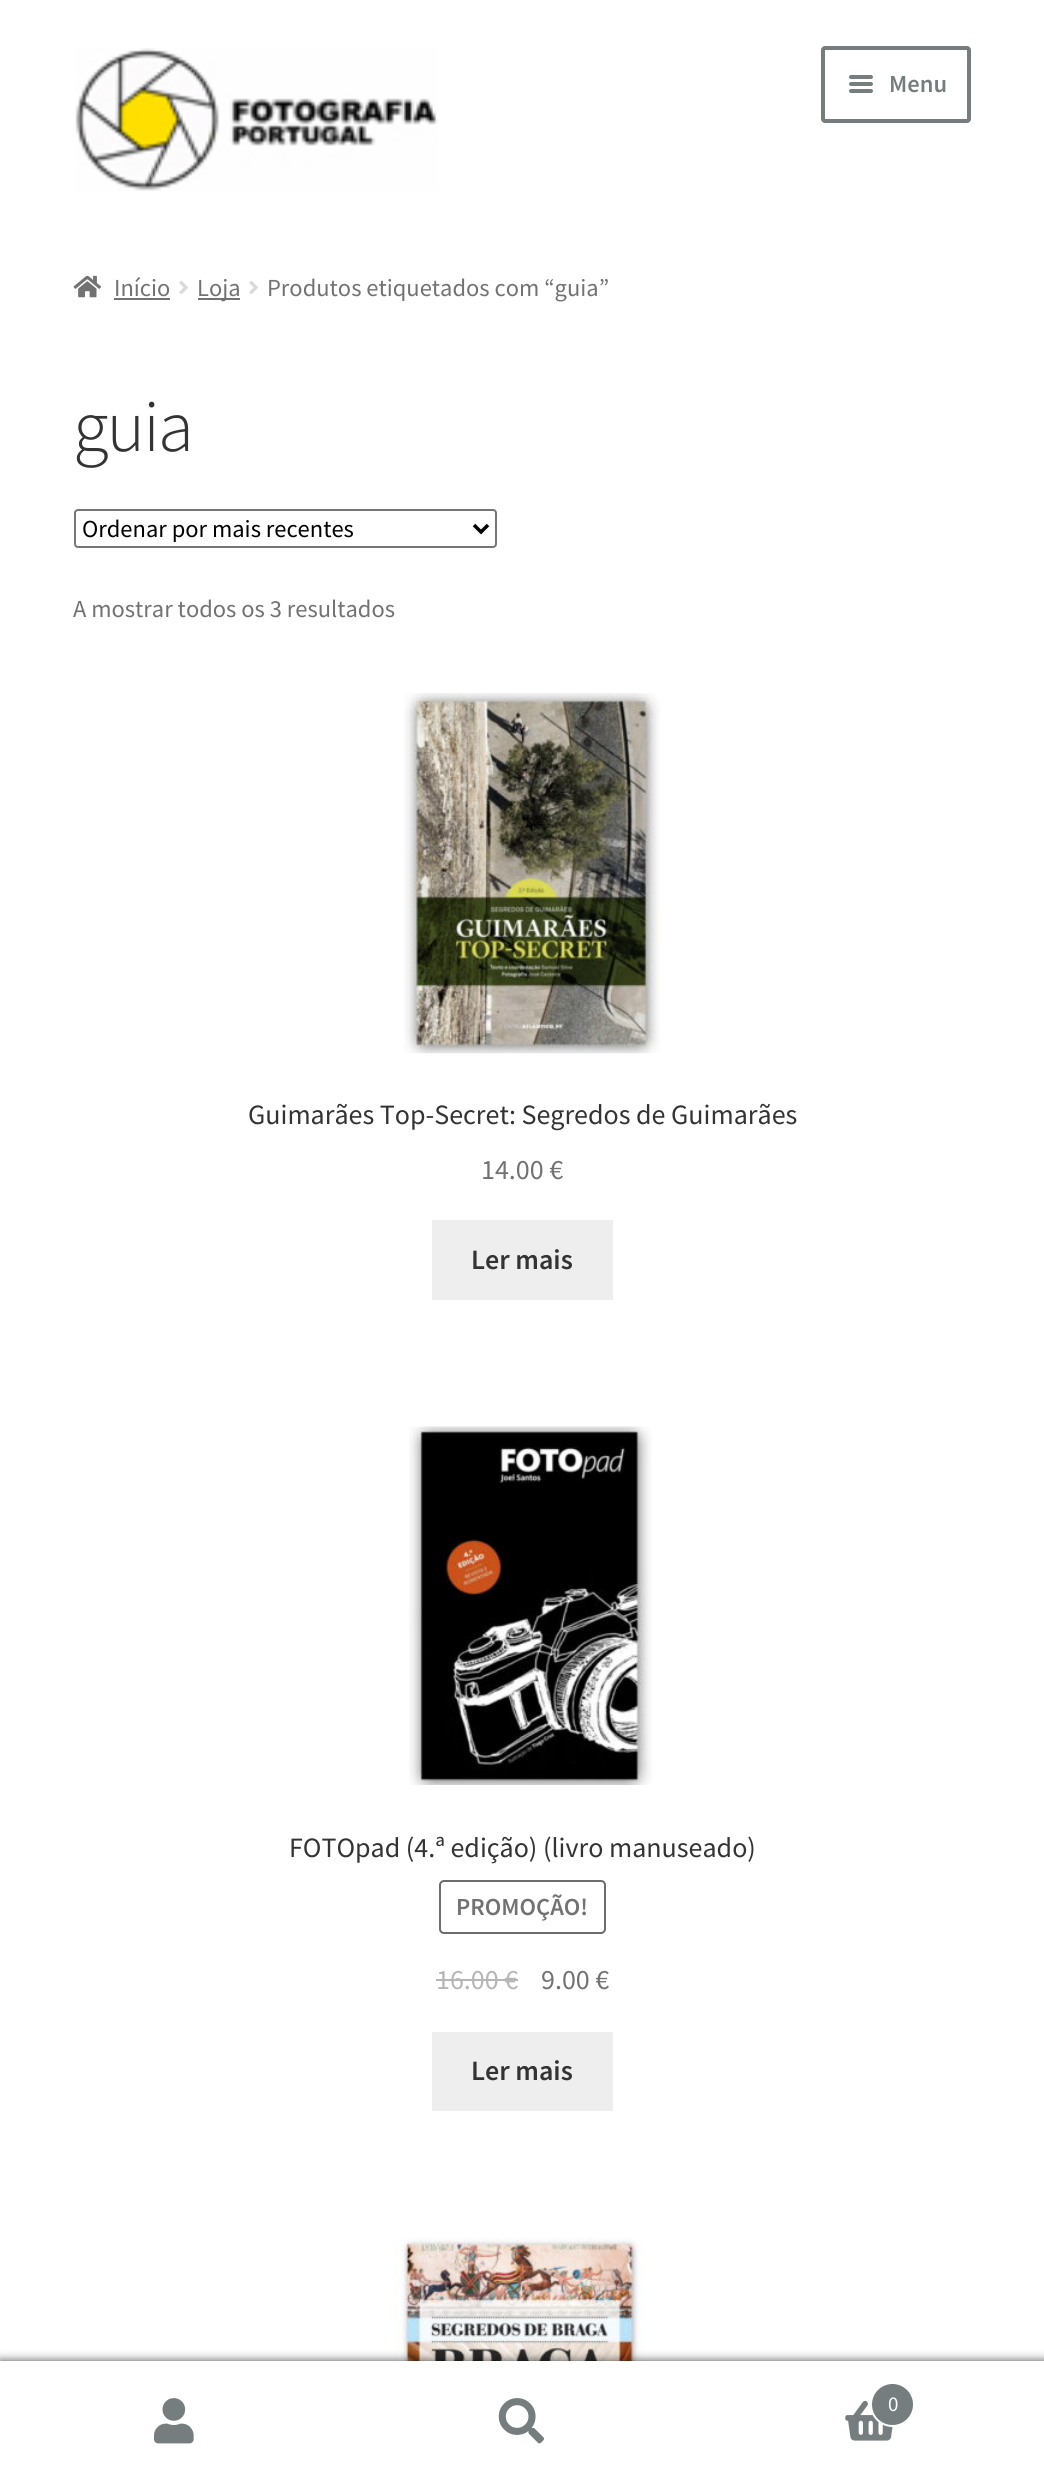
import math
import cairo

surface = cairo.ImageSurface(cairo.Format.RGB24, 1044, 2480)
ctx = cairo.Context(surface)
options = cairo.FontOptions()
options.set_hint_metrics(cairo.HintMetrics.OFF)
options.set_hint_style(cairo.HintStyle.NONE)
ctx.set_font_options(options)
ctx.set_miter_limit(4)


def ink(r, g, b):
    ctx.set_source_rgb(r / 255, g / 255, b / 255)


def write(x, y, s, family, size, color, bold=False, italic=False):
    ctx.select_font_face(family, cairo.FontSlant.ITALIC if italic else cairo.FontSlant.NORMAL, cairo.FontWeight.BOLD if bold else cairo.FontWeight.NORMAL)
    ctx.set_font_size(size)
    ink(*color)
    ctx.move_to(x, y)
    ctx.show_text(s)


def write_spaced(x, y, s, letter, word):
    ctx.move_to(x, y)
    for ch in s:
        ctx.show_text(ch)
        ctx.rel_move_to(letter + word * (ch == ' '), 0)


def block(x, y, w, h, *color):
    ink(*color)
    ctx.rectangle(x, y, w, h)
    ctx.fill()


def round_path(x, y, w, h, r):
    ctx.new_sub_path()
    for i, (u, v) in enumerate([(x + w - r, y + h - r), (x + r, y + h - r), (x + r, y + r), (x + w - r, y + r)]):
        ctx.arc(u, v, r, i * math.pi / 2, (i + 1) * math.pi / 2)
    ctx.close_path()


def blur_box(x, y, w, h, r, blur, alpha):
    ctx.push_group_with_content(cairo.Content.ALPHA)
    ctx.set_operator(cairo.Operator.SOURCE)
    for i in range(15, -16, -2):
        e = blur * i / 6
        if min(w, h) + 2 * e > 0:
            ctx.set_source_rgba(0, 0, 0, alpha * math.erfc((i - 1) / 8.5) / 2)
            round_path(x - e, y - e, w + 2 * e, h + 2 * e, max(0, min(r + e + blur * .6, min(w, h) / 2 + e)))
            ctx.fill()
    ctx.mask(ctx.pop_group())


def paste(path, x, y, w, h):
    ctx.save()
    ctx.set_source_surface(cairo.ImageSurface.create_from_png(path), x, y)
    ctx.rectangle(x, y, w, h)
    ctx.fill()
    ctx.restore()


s1 = dict(family="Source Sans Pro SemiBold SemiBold", size=24.5, color=(117, 125, 127))
s2 = dict(family="Source Sans Pro", size=24.5, color=(114, 114, 114))
s3 = dict(family="Source Sans Pro", size=24.5, color=(0, 0, 0))
s4 = dict(family="Source Sans Pro", size=28, color=(51, 51, 51))
s5 = dict(family="Source Sans Pro", size=28, color=(114, 114, 114))
s6 = dict(family="Source Sans Pro SemiBold SemiBold", size=28, color=(51, 51, 51))
s7 = dict(family="Source Sans Pro SemiBold SemiBold", size=24.5, color=(114, 114, 114))
s8 = dict(family="Source Sans Pro", size=28, color=(182, 182, 182))
s9 = dict(family="Source Sans Pro", size=21, color=(255, 255, 255))

ink(255, 255, 255)
ctx.paint()
paste("pic1.png", 75, 48, 363, 143)
round_path(823, 48, 146, 73, 2)
ink(117, 125, 127)
ctx.set_line_width(4)
ctx.stroke()
round_path(849, 75, 24, 4, 2)
ctx.fill()
round_path(849, 82, 24, 4, 2)
ctx.fill()
write(889, 92, "Menu", **s1)
round_path(849, 89, 24, 4, 2)
ctx.fill()
paste("pic2.png", 73, 275, 28, 23)
write(114, 296, "Início", **s2)
block(114, 298, 56, 2, 114, 114, 114)
paste("pic3.png", 179, 280, 9, 15)
block(198, 298, 42, 2, 114, 114, 114)
write(197, 296, "Loja", **s2)
paste("pic3.png", 249, 280, 9, 15)
write(267, 296, "Produtos etiquetados com “guia”", **s2)
ctx.select_font_face("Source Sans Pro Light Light")
ctx.set_font_size(73)
ink(51, 51, 51)
write_spaced(73, 451, "guia", -2, 0)
round_path(75, 510, 421, 37, 3)
ink(118, 118, 118)
ctx.set_line_width(2)
ctx.stroke()
ctx.new_path()
ctx.move_to(474, 525)
ctx.line_to(481, 532)
ctx.line_to(488, 525)
ink(0, 0, 0)
ctx.set_line_width(3.5)
ctx.stroke()
write(82, 537, "Ordenar por mais recentes", **s3)
write(73, 617, "A mostrar todos os 3 resultados", **s2)
paste("pic4.png", 404, 693, 256, 361)
write(248, 1124, "Guimarães Top-Secret: Segredos de Guimarães", **s4)
write(481, 1179, "14.00 €", **s5)
block(432, 1220, 181, 80, 238, 238, 238)
write(471, 1269, "Ler mais", **s6)
paste("pic5.png", 409, 1426, 243, 359)
write(289, 1857, "FOTOpad (4.ª edição) (livro manuseado)", **s4)
round_path(440, 1881, 165, 52, 4)
ink(109, 109, 109)
ctx.set_line_width(2)
ctx.stroke()
write(456, 1915, "PROMOÇÃO!", **s7)
write(436, 1989, "16.00 €", **s8)
block(436, 1979, 82, 2, 182, 182, 182)
write(541, 1989, "9.00 €", **s5)
block(432, 2032, 181, 79, 238, 238, 238)
write(471, 2080, "Ler mais", **s6)
paste("pic6.png", 394, 2237, 250, 124)
ink(0, 0, 0)
blur_box(0, 2361, 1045, 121, 0, 5, 0.7)
block(0, 2361, 1044, 2, 255, 255, 255)
block(0, 2363, 1044, 117, 255, 255, 255)
paste("pic7.png", 154, 2398, 40, 46)
paste("pic8.png", 498, 2398, 46, 46)
paste("pic9.png", 845, 2400, 48, 41)
ink(117, 125, 127)
ctx.arc(892.5, 2404.5, 21.5, 0, 2 * math.pi)
ctx.fill_preserve()
ink(255, 255, 255)
ctx.stroke()
write(888, 2411, "0", **s9)
surface.write_to_png("screenshot.png")
